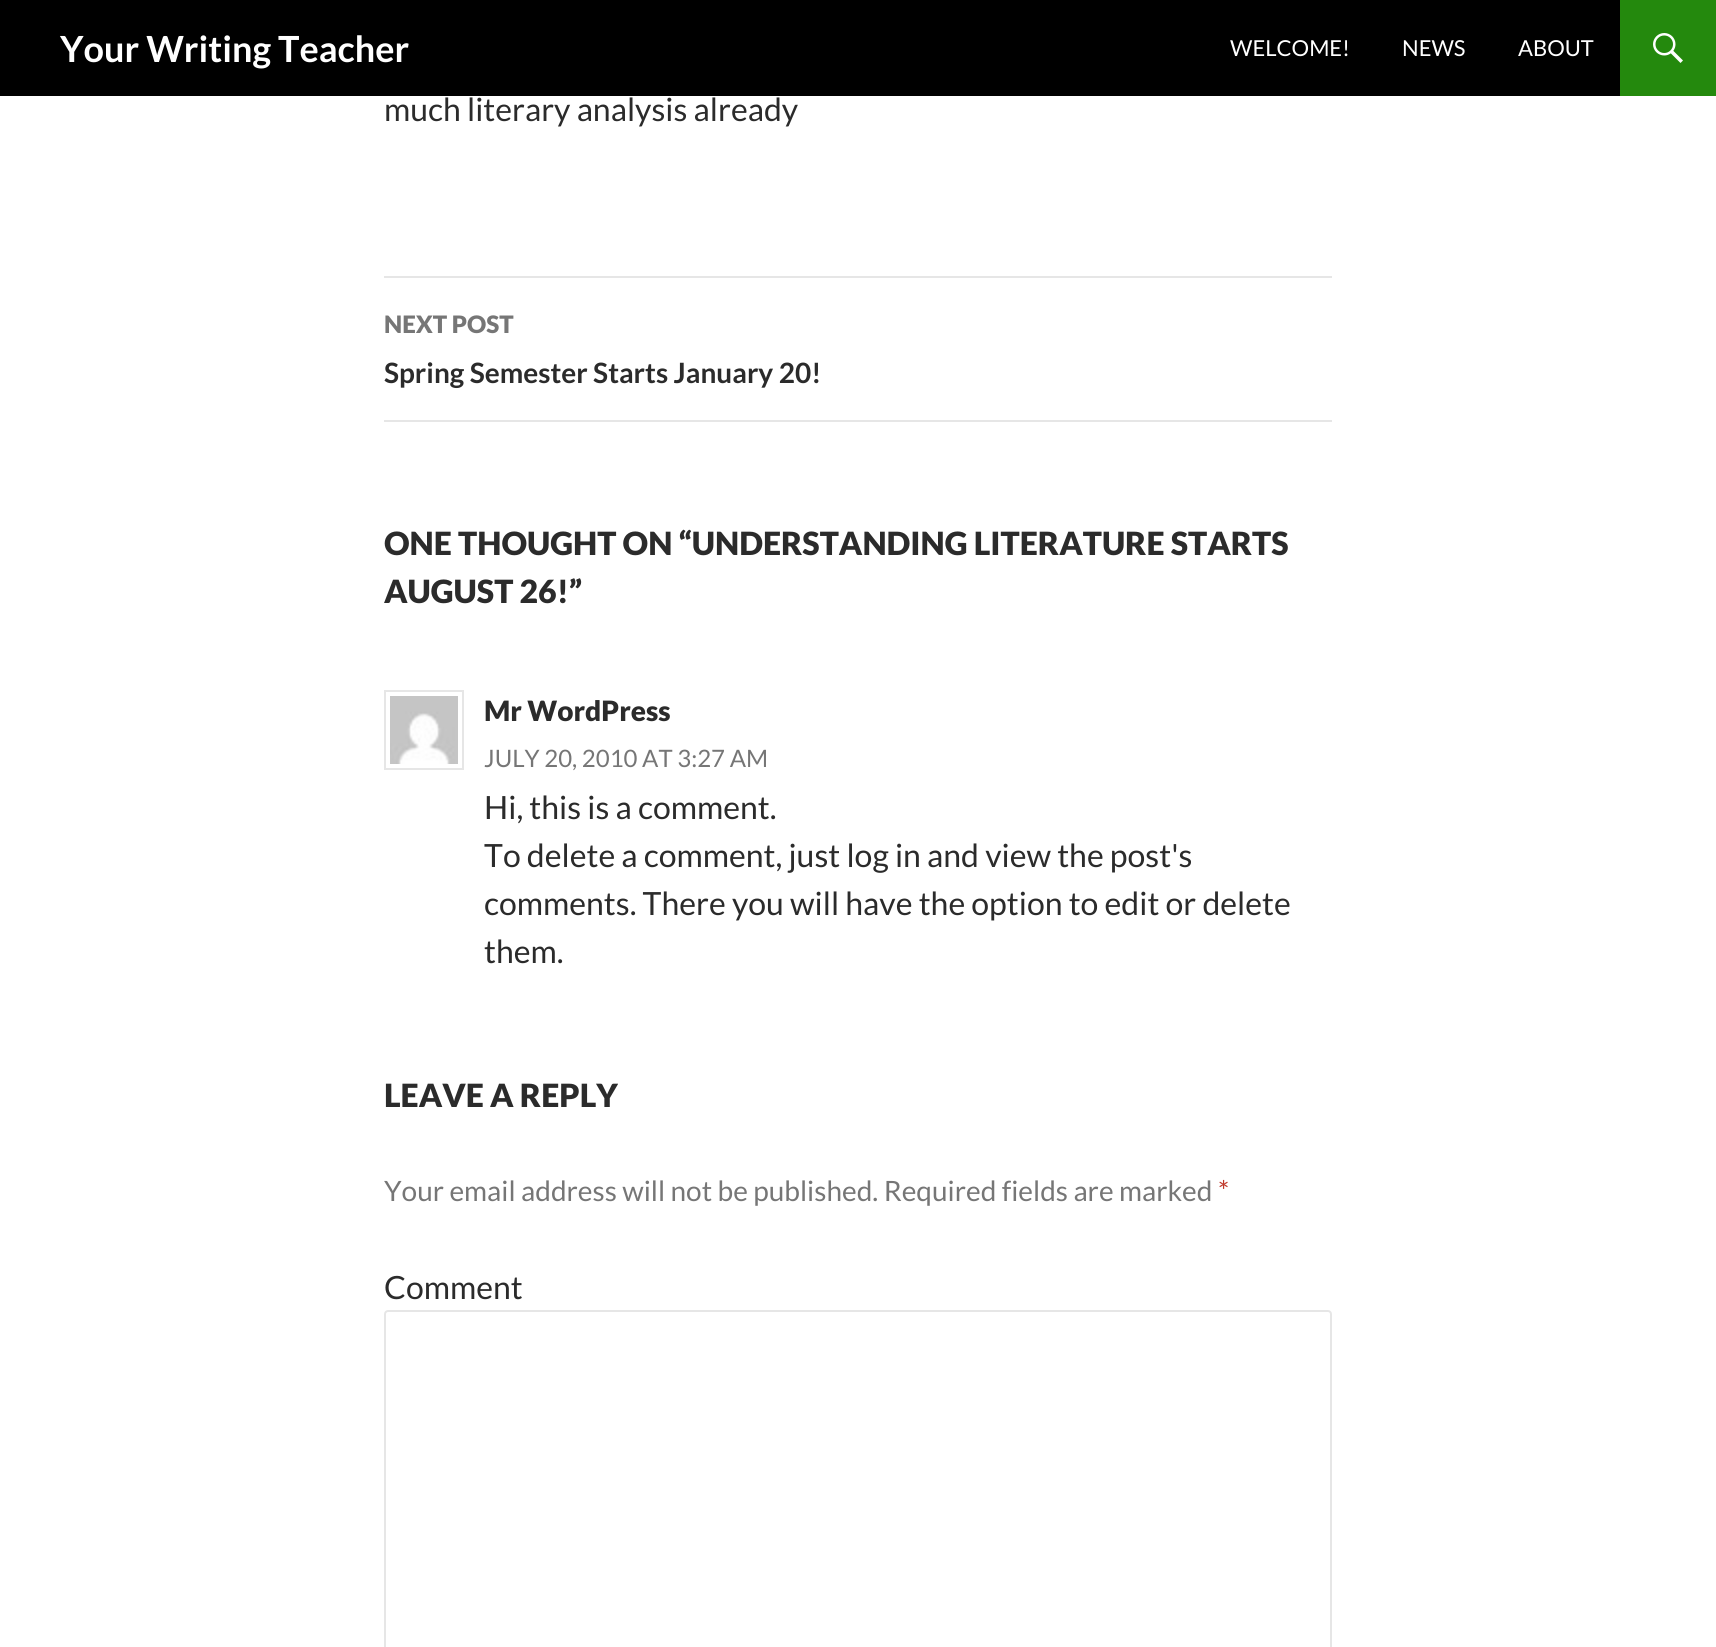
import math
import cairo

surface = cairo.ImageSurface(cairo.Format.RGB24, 1716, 1647)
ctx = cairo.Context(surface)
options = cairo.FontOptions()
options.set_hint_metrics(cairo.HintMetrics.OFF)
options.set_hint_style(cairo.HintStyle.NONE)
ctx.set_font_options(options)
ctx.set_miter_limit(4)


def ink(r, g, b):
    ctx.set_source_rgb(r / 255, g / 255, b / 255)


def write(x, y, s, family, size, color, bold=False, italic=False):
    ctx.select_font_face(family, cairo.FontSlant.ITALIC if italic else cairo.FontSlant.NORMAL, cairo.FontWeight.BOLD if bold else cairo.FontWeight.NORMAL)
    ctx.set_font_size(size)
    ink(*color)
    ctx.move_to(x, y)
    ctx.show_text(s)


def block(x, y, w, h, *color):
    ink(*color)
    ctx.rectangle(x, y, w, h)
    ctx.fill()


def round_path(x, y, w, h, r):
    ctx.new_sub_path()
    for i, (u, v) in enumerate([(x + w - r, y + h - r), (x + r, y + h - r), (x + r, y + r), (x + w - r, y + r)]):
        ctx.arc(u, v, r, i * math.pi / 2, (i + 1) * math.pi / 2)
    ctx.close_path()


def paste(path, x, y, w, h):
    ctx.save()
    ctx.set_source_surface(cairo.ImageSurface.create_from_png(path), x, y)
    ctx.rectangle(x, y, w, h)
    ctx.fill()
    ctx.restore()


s1 = dict(family="Lato", size=36, color=(255, 255, 255), bold=True)
s2 = dict(family="Lato", size=22, color=(255, 255, 255))
s3 = dict(family="Lato", size=32, color=(43, 43, 43))
s4 = dict(family="Lato Black", size=24, color=(118, 118, 118))
s5 = dict(family="Lato", size=28, color=(43, 43, 43), bold=True)
s6 = dict(family="Lato Black", size=32, color=(43, 43, 43))
s7 = dict(family="Lato Black", size=28, color=(43, 43, 43))
s8 = dict(family="Lato", size=24, color=(118, 118, 118))
s9 = dict(family="Lato", size=28, color=(118, 118, 118))
s10 = dict(family="Lato", size=28, color=(192, 57, 43))

ink(255, 255, 255)
ctx.paint()
block(0, 0, 1620, 96, 0, 0, 0)
write(60, 62, "Your Writing Teacher", **s1)
write(1230, 56, "WELCOME!", **s2)
write(1402, 56, "NEWS", **s2)
write(1518, 56, "ABOUT", **s2)
block(1620, 0, 96, 96, 36, 137, 13)
paste("pic1.png", 1653, 33, 30, 30)
write(384, 121, "much literary analysis already", **s3)
block(384, 276, 948, 2, 230, 230, 230)
block(384, 420, 948, 2, 230, 230, 230)
write(384, 333, "NEXT POST", **s4)
write(384, 383, "Spring Semester Starts January 20!", **s5)
write(384, 555, "ONE THOUGHT ON “UNDERSTANDING LITERATURE STARTS", **s6)
write(384, 603, "AUGUST 26!”", **s6)
ctx.rectangle(385, 691, 78, 78)
ink(230, 230, 230)
ctx.stroke()
paste("pic2.png", 390, 696, 68, 68)
write(484, 721, "Mr WordPress", **s7)
write(484, 767, "JULY 20, 2010 AT 3:27 AM", **s8)
write(484, 819, "Hi, this is a comment.", **s3)
write(484, 867, "To delete a comment, just log in and view the post's", **s3)
write(484, 915, "comments. There you will have the option to edit or delete", **s3)
write(484, 963, "them.", **s3)
write(384, 1107, "LEAVE A REPLY", **s6)
write(384, 1201, "Your email address will not be published. Required fields are marked", **s9)
write(1218, 1201, "*", **s10)
write(384, 1299, "Comment", **s3)
round_path(385, 1311, 946, 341, 3)
ink(230, 230, 230)
ctx.stroke()
surface.write_to_png("screenshot.png")
